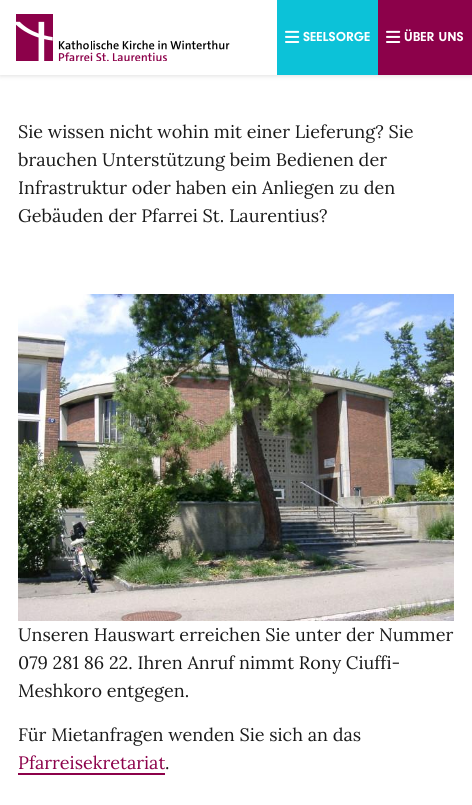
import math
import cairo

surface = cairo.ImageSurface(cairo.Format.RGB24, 472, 805)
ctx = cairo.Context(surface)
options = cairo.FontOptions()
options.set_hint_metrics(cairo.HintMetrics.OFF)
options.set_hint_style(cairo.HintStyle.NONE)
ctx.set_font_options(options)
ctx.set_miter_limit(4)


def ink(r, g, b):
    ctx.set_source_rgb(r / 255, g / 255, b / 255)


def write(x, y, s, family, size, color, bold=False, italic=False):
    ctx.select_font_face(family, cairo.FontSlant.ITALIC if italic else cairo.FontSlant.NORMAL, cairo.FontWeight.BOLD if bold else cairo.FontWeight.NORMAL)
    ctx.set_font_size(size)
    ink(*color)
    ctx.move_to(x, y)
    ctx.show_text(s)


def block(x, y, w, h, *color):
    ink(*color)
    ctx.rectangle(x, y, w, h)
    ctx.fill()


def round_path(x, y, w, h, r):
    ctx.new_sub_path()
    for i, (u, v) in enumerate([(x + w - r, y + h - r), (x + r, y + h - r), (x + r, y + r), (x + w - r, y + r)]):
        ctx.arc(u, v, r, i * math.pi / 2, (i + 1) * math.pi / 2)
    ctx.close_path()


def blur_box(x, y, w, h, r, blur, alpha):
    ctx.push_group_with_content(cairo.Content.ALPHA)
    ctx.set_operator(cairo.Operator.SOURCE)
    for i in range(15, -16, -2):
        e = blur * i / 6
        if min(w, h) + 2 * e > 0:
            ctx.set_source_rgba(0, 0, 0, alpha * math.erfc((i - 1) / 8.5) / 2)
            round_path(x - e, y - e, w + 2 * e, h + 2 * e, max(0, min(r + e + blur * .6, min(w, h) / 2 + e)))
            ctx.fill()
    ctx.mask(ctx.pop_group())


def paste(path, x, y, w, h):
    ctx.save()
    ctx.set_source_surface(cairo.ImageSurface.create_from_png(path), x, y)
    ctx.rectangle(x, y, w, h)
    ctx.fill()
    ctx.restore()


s1 = dict(family="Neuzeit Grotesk", size=13.5, color=(255, 255, 255), bold=True)
s2 = dict(family="Lora", size=18, color=(26, 26, 26))
s3 = dict(family="Lora", size=18, color=(140, 1, 74))

ink(255, 255, 255)
ctx.paint()
ink(0, 0, 0)
blur_box(0, 0, 472, 75, 0, 3, 0.16)
block(0, 0, 277, 75, 255, 255, 255)
paste("pic1.png", 16, 14, 214, 47)
block(277, 0, 101, 75, 12, 194, 216)
paste("pic2.png", 285, 30, 15, 13)
write(303, 41, "SEELSORGE", **s1)
block(378, 0, 94, 75, 140, 1, 74)
paste("pic3.png", 386, 30, 15, 13)
write(404, 41, "ÜBER UNS", **s1)
write(18, 138, "Sie wissen nicht wohin mit einer Lieferung? Sie", **s2)
write(18, 166, "brauchen Unterstützung beim Bedienen der", **s2)
write(18, 194, "Infrastruktur oder haben ein Anliegen zu den", **s2)
write(18, 222, "Gebäuden der Pfarrei St. Laurentius?", **s2)
paste("pic4.png", 18, 294, 436, 327)
write(18, 641, "Unseren Hauswart erreichen Sie unter der Nummer", **s2)
write(18, 669, "079 281 86 22. Ihren Anruf nimmt Rony Ciuffi-", **s2)
write(18, 697, "Meshkoro entgegen.", **s2)
write(18, 741, "Für Mietanfragen wenden Sie sich an das", **s2)
write(18, 769, "Pfarreisekretariat", **s3)
block(18, 773, 147, 2, 140, 1, 74)
write(165, 769, ".", **s2)
surface.write_to_png("screenshot.png")
